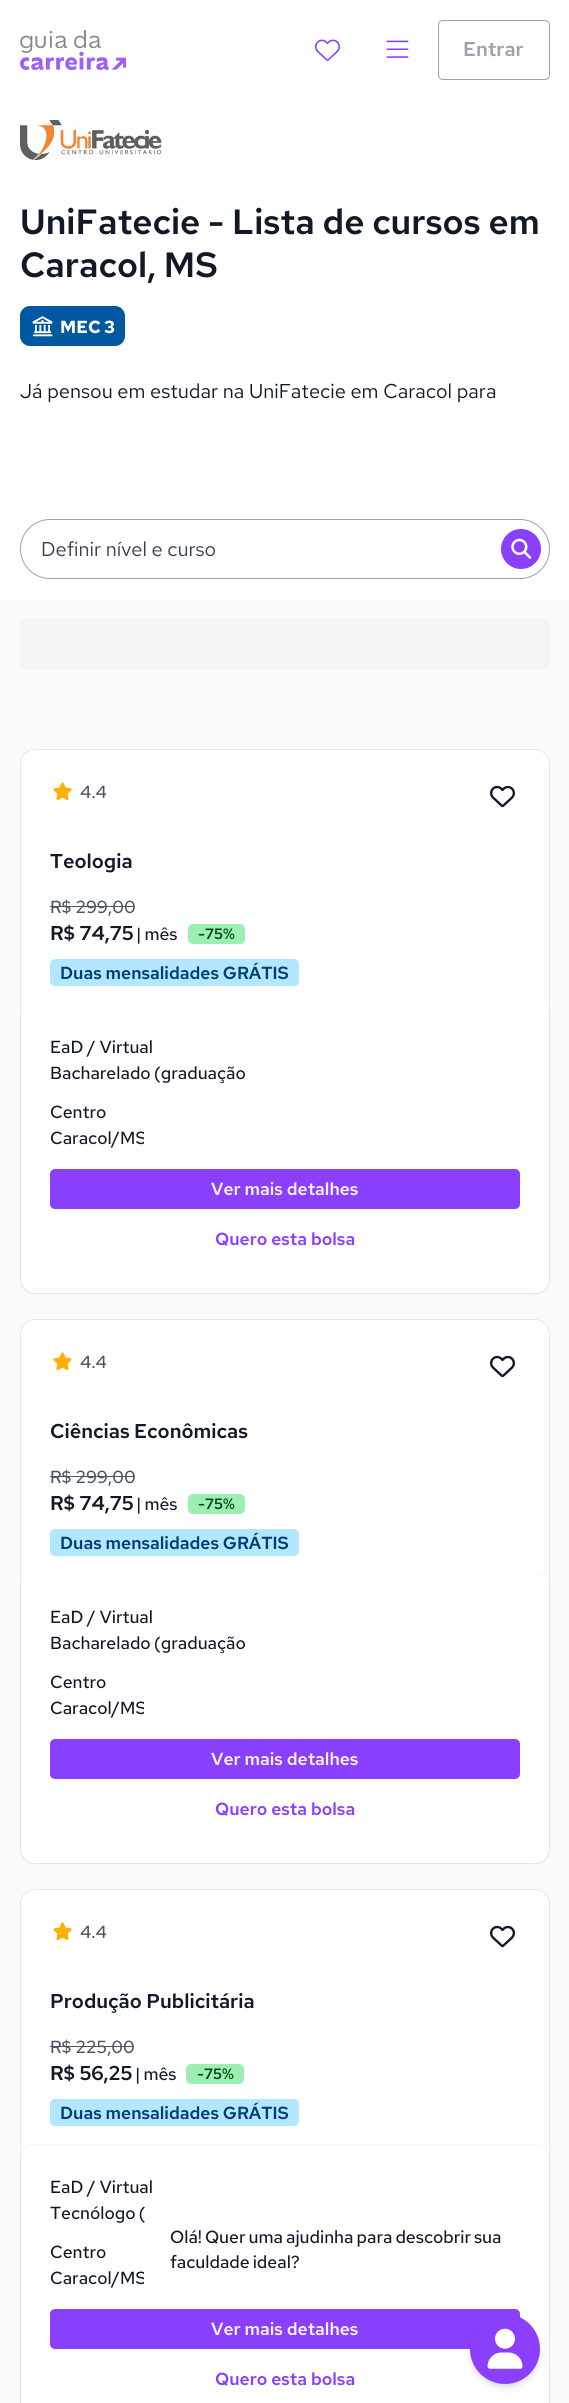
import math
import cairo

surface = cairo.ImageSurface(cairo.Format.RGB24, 569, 2403)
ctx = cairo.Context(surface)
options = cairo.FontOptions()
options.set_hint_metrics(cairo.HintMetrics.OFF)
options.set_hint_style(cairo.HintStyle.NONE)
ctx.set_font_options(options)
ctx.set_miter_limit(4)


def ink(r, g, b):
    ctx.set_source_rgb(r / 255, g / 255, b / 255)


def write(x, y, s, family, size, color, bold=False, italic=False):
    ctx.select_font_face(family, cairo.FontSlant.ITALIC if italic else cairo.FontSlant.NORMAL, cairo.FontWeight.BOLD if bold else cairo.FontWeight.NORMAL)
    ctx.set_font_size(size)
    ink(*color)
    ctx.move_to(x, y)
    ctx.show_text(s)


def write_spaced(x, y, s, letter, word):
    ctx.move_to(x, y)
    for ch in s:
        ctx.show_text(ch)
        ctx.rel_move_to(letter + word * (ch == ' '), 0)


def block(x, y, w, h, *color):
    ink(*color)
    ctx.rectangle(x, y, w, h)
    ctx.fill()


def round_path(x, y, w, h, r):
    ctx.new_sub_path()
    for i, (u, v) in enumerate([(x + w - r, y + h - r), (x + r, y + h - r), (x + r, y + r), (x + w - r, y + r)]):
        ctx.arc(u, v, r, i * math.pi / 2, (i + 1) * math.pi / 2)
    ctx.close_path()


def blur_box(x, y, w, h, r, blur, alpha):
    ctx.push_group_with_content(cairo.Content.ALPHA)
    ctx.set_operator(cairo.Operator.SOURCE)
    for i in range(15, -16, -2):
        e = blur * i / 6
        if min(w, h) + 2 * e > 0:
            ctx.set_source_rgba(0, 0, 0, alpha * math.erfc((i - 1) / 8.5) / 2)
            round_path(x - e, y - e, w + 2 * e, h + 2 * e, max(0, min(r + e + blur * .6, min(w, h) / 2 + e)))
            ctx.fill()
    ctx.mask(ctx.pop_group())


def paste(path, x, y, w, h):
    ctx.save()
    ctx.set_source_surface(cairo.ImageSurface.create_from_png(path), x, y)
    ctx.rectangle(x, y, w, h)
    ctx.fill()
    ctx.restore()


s1 = dict(family="Red Hat Text SemiBold", size=20, color=(156, 163, 175))
s2 = dict(family="Red Hat Text SemiBold", size=35, color=(17, 24, 39))
s3 = dict(family="Red Hat Text", size=17.5, color=(255, 255, 255), bold=True)
s4 = dict(family="Red Hat Text", size=20, color=(17, 24, 39))
s5 = dict(family="Red Hat Text", size=20, color=(55, 65, 81))
s6 = dict(family="Red Hat Text Medium", size=17.5, color=(75, 85, 99))
s7 = dict(family="Red Hat Text SemiBold", size=20, color=(17, 24, 39))
s8 = dict(family="Red Hat Text SemiBold", size=15, color=(5, 71, 25))
s9 = dict(family="Red Hat Text SemiBold", size=17.5, color=(0, 61, 115))
s10 = dict(family="Red Hat Text Medium", size=17.5, color=(17, 24, 39))
s11 = dict(family="Red Hat Text SemiBold", size=17.5, color=(247, 241, 255))
s12 = dict(family="Red Hat Text SemiBold", size=17.5, color=(138, 63, 252))

ink(249, 250, 251)
ctx.paint()
block(0, 0, 569, 599, 255, 255, 255)
paste("pic1.png", 20, 30, 106, 40)
paste("pic2.png", 315, 39, 25, 22)
paste("pic3.png", 386, 40, 23, 18)
round_path(438.5, 20.5, 111, 59, 4.5)
ink(156, 163, 175)
ctx.set_line_width(1)
ctx.stroke()
write(463, 56, "Entrar", **s1)
paste("pic4.png", 20, 120, 142, 40)
write(20, 234, "UniFatecie - Lista de cursos em", **s2)
write(20, 277, "Caracol, MS", **s2)
ink(0, 88, 161)
round_path(20, 306, 105, 40, 10)
ctx.fill()
paste("pic5.png", 32, 316, 21, 21)
write(60, 333, "MEC 3", **s3)
write(20, 398, "Já pensou em estudar na UniFatecie em Caracol para", **s4)
round_path(20.5, 519.5, 529, 59, 29.5)
ink(156, 163, 175)
ctx.stroke()
write(41, 556, "Definir nível e curso", **s5)
ink(138, 63, 252)
ctx.new_path()
ctx.arc(521, 549, 20, 0, 2 * math.pi)
ctx.fill()
paste("pic6.png", 511, 538, 21, 21)
ink(243, 244, 246)
round_path(20, 619, 530, 50, 5)
ctx.fill()
ink(255, 255, 255)
round_path(20.5, 749.5, 529, 544, 14.5)
ctx.fill_preserve()
ink(229, 231, 235)
ctx.stroke()
paste("pic7.png", 53, 782, 19, 19)
write(80, 798, "4.4", **s6)
paste("pic8.png", 490, 785, 25, 23)
write(50, 868, "Teologia", **s7)
write(50, 913, "R$ 299,00", **s6)
block(50, 906, 85, 1, 75, 85, 99)
write(50, 940, "R$ 74,75", **s7)
ctx.select_font_face("Red Hat Text Medium")
ctx.set_font_size(17.5)
write_spaced(136, 940, "| mês", 0, -1)
ink(157, 238, 178)
round_path(188, 924, 57, 20, 5)
ctx.fill()
write(198, 939, "-75%", **s8)
ink(179, 230, 255)
round_path(50, 959, 249, 27, 5)
ctx.fill()
write(60, 979, "Duas mensalidades GRÁTIS", **s9)
round_path(20.1, 1004.1, 529.8, 289.8, 14.9)
ink(213, 217, 224)
ctx.set_line_width(0.2)
ctx.stroke()
write(50, 1053, "EaD / Virtual", **s10)
write_spaced(50, 1079, "Bacharelado (graduação", 0, -1)
write(50, 1118, "Centro", **s10)
ctx.save()
ctx.rectangle(50, 1125, 94, 26)
ctx.clip()
write(50, 1144, "Caracol/MS", **s10)
ctx.restore()
ink(138, 63, 252)
round_path(50, 1169, 470, 40, 5)
ctx.fill()
write(211, 1195, "Ver mais detalhes", **s11)
write(215, 1245, "Quero esta bolsa", **s12)
ink(255, 255, 255)
round_path(20.5, 1319.5, 529, 544, 14.5)
ctx.fill_preserve()
ink(229, 231, 235)
ctx.set_line_width(1)
ctx.stroke()
paste("pic7.png", 53, 1352, 19, 19)
write(80, 1368, "4.4", **s6)
paste("pic8.png", 490, 1355, 25, 23)
write(50, 1438, "Ciências Econômicas", **s7)
write(50, 1483, "R$ 299,00", **s6)
block(50, 1476, 85, 1, 75, 85, 99)
write(50, 1510, "R$ 74,75", **s7)
ctx.select_font_face("Red Hat Text Medium")
ctx.set_font_size(17.5)
write_spaced(136, 1510, "| mês", 0, -1)
ink(157, 238, 178)
round_path(188, 1494, 57, 20, 5)
ctx.fill()
write(198, 1509, "-75%", **s8)
ink(179, 230, 255)
round_path(50, 1529, 249, 27, 5)
ctx.fill()
write(60, 1549, "Duas mensalidades GRÁTIS", **s9)
round_path(20.1, 1574.1, 529.8, 289.8, 14.9)
ink(213, 217, 224)
ctx.set_line_width(0.2)
ctx.stroke()
write(50, 1623, "EaD / Virtual", **s10)
write_spaced(50, 1649, "Bacharelado (graduação", 0, -1)
write(50, 1688, "Centro", **s10)
ctx.save()
ctx.rectangle(50, 1695, 94, 26)
ctx.clip()
write(50, 1714, "Caracol/MS", **s10)
ctx.restore()
ink(138, 63, 252)
round_path(50, 1739, 470, 40, 5)
ctx.fill()
write(211, 1765, "Ver mais detalhes", **s11)
write(215, 1815, "Quero esta bolsa", **s12)
ink(255, 255, 255)
round_path(20.5, 1889.5, 529, 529, 14.5)
ctx.fill_preserve()
ink(229, 231, 235)
ctx.set_line_width(1)
ctx.stroke()
paste("pic7.png", 53, 1922, 19, 19)
write(80, 1938, "4.4", **s6)
paste("pic8.png", 490, 1925, 25, 23)
write(50, 2008, "Produção Publicitária", **s7)
write(50, 2053, "R$ 225,00", **s6)
block(50, 2046, 84, 1, 75, 85, 99)
write(50, 2080, "R$ 56,25", **s7)
ctx.select_font_face("Red Hat Text Medium")
ctx.set_font_size(17.5)
write_spaced(135, 2080, "| mês", 0, -1)
ink(157, 238, 178)
round_path(186, 2064, 58, 20, 5)
ctx.fill()
write(197, 2079, "-75%", **s8)
ink(179, 230, 255)
round_path(50, 2099, 249, 27, 5)
ctx.fill()
write(60, 2119, "Duas mensalidades GRÁTIS", **s9)
round_path(20.1, 2144.1, 529.8, 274.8, 14.9)
ink(213, 217, 224)
ctx.set_line_width(0.2)
ctx.stroke()
write(50, 2193, "EaD / Virtual", **s10)
write_spaced(50, 2219, "Tecnólogo (", 0, -1)
write(50, 2258, "Centro", **s10)
ctx.save()
ctx.rectangle(50, 2265, 94, 26)
ctx.clip()
write(50, 2284, "Caracol/MS", **s10)
ctx.restore()
ink(138, 63, 252)
round_path(50, 2309, 470, 40, 5)
ctx.fill()
write(211, 2335, "Ver mais detalhes", **s11)
write(215, 2385, "Quero esta bolsa", **s12)
ctx.select_font_face("Red Hat Text Medium")
ink(17, 24, 39)
write_spaced(170, 2243, "Olá! Quer uma ajudinha para descobrir sua", 0, -1)
write_spaced(170, 2268, "faculdade ideal?", 0, -1)
ink(0, 0, 0)
blur_box(473, 2319, 65, 65, 32.5, 2.5, 0.1)
blur_box(471, 2320, 68, 68, 34, 4, 0.1)
ink(138, 63, 252)
ctx.arc(505, 2349, 35, 0, 2 * math.pi)
ctx.fill()
paste("pic9.png", 487, 2328, 36, 41)
surface.write_to_png("screenshot.png")
